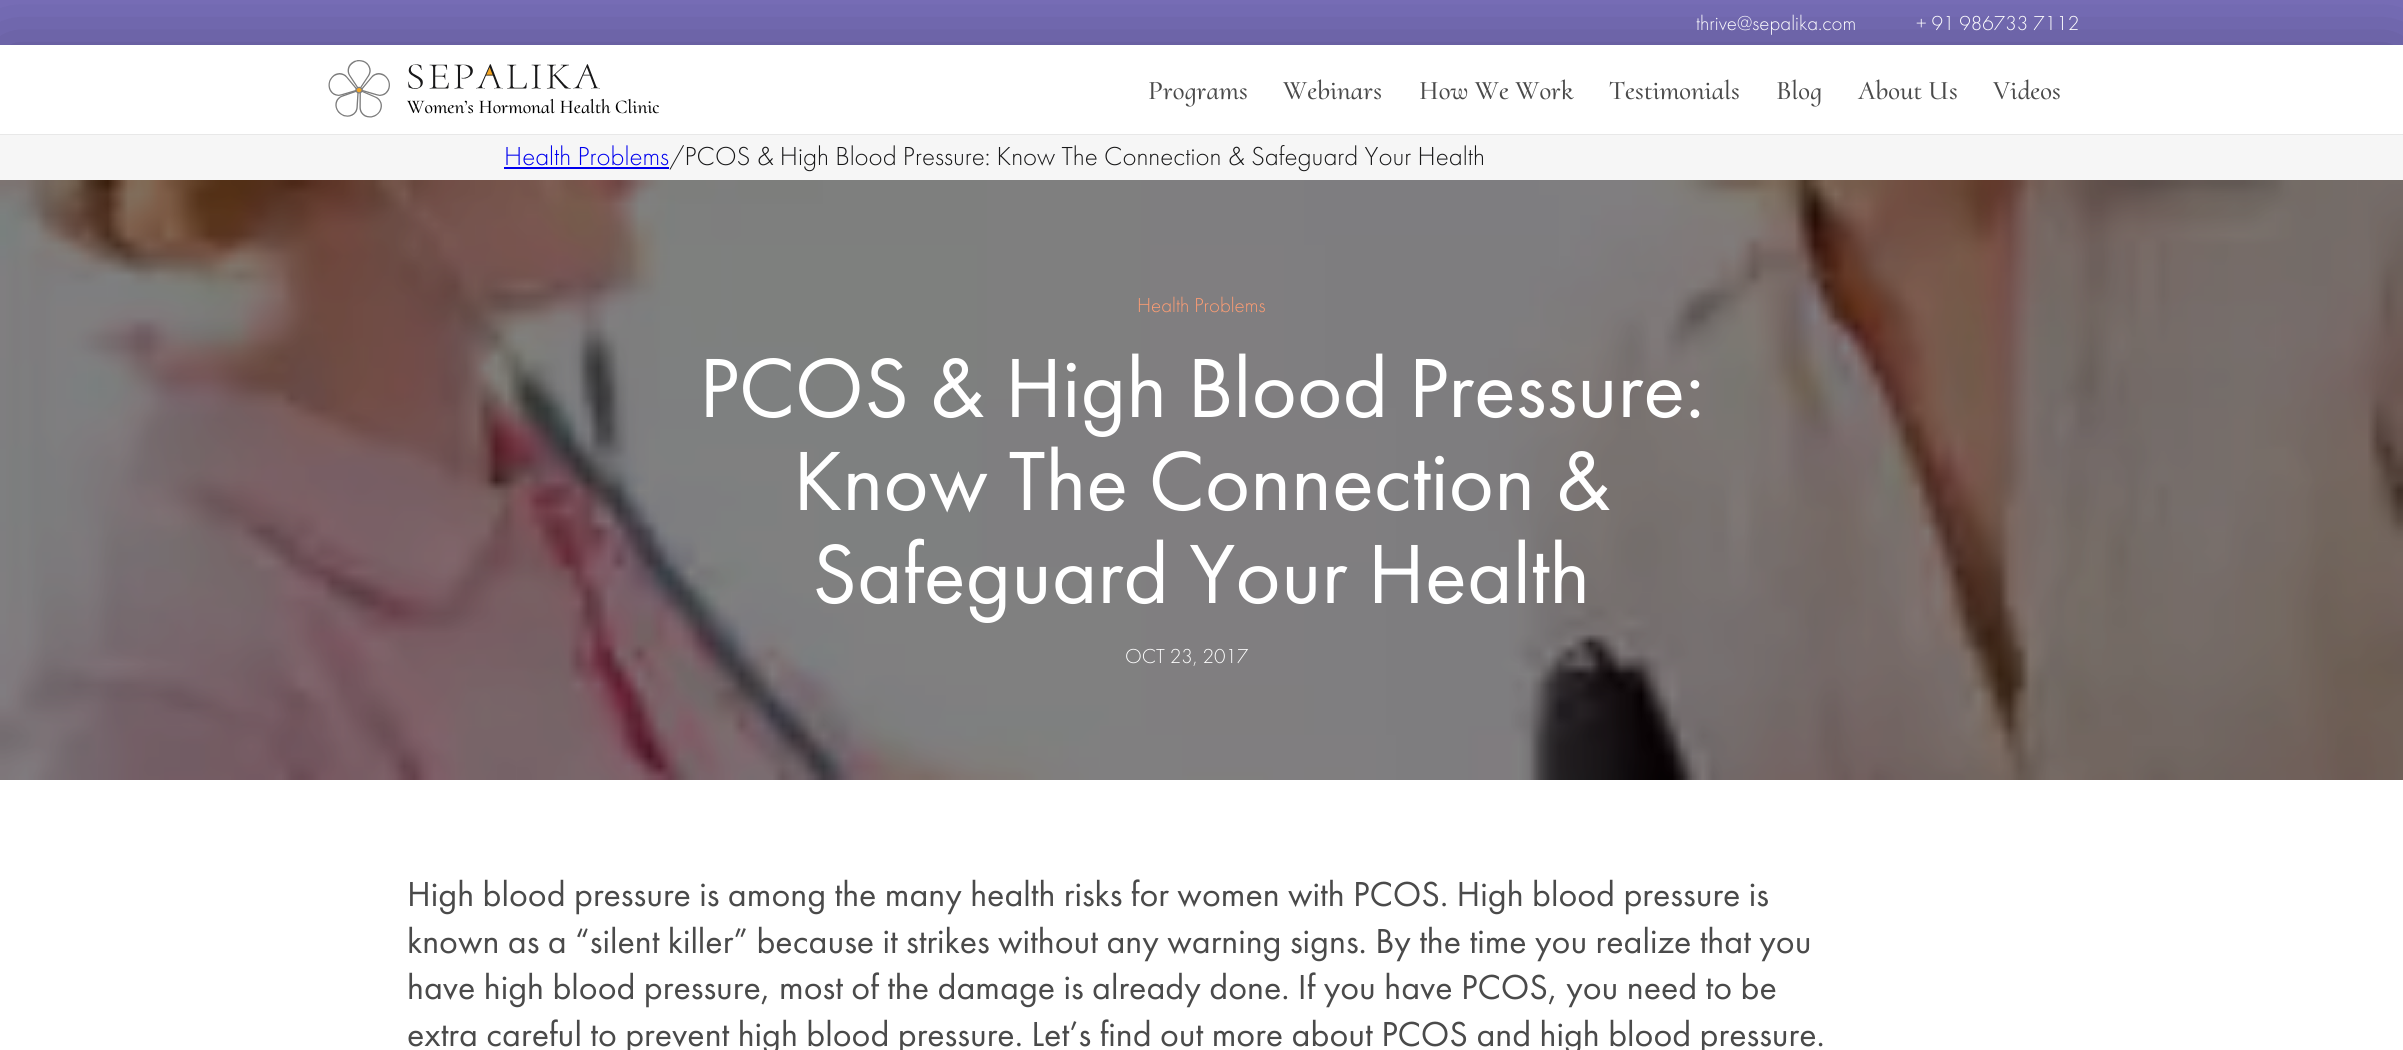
import math
import cairo

surface = cairo.ImageSurface(cairo.Format.RGB24, 2403, 1050)
ctx = cairo.Context(surface)
options = cairo.FontOptions()
options.set_hint_metrics(cairo.HintMetrics.OFF)
options.set_hint_style(cairo.HintStyle.NONE)
ctx.set_font_options(options)
ctx.set_miter_limit(4)


def ink(r, g, b):
    ctx.set_source_rgb(r / 255, g / 255, b / 255)


def write(x, y, s, family, size, color, bold=False, italic=False):
    ctx.select_font_face(family, cairo.FontSlant.ITALIC if italic else cairo.FontSlant.NORMAL, cairo.FontWeight.BOLD if bold else cairo.FontWeight.NORMAL)
    ctx.set_font_size(size)
    ink(*color)
    ctx.move_to(x, y)
    ctx.show_text(s)


def block(x, y, w, h, *color):
    ink(*color)
    ctx.rectangle(x, y, w, h)
    ctx.fill()


def round_path(x, y, w, h, r):
    ctx.new_sub_path()
    for i, (u, v) in enumerate([(x + w - r, y + h - r), (x + r, y + h - r), (x + r, y + r), (x + w - r, y + r)]):
        ctx.arc(u, v, r, i * math.pi / 2, (i + 1) * math.pi / 2)
    ctx.close_path()


def blur_box(x, y, w, h, r, blur, alpha):
    ctx.push_group_with_content(cairo.Content.ALPHA)
    ctx.set_operator(cairo.Operator.SOURCE)
    for i in range(15, -16, -2):
        e = blur * i / 6
        if min(w, h) + 2 * e > 0:
            ctx.set_source_rgba(0, 0, 0, alpha * math.erfc((i - 1) / 8.5) / 2)
            round_path(x - e, y - e, w + 2 * e, h + 2 * e, max(0, min(r + e + blur * .6, min(w, h) / 2 + e)))
            ctx.fill()
    ctx.mask(ctx.pop_group())


def paste(path, x, y, w, h):
    ctx.save()
    ctx.set_source_surface(cairo.ImageSurface.create_from_png(path), x, y)
    ctx.rectangle(x, y, w, h)
    ctx.fill()
    ctx.restore()


s1 = dict(family="Futura PT Light", size=21, color=(255, 255, 255))
s2 = dict(family="Cormorant Upright Medium", size=19.5, color=(0, 0, 0))
s3 = dict(family="Cormorant Upright Medium", size=27, color=(74, 74, 74))
s4 = dict(family="Futura PT Light", size=27, color=(0, 0, 238))
s5 = dict(family="Futura PT Light", size=27, color=(24, 24, 25))
s6 = dict(family="Futura PT Light", size=21, color=(255, 157, 115))
s7 = dict(family="Futura PT", size=87, color=(255, 255, 255))
s8 = dict(family="Futura PT", size=36, color=(74, 74, 74))

ink(255, 255, 255)
ctx.paint()
block(0, 0, 2403, 45, 120, 110, 185)
ctx.save()
ctx.rectangle(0, 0, 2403, 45)
ctx.clip()
ink(0, 0, 0)
blur_box(0, 48, 2403, 90, 0, 37.5, 0.25)
ctx.restore()
write(1696, 30, "thrive@sepalika.com", **s1)
write(1916, 30, "+ 91 986733 7112", **s1)
block(0, 134, 2403, 1, 232, 232, 232)
paste("pic1.png", 328, 60, 272, 58)
write(407, 113, "Women’s Hormonal Health Clinic", **s2)
write(1148, 99, "Programs", **s3)
write(1283, 99, "Webinars", **s3)
write(1419, 99, "How We Work", **s3)
write(1609, 99, "Testimonials", **s3)
write(1776, 99, "Blog", **s3)
write(1858, 99, "About Us", **s3)
write(1993, 99, "Videos", **s3)
block(0, 135, 2403, 45, 246, 246, 246)
write(504, 165, "Health Problems", **s4)
block(504, 167, 165, 2, 0, 0, 238)
write(669, 165, "/PCOS & High Blood Pressure: Know The Connection & Safeguard Your Health", **s5)
paste("pic2.png", 0, 180, 2403, 600)
write(1137, 312, "Health Problems", **s6)
write(699, 417, "PCOS & High Blood Pressure:", **s7)
write(793, 510, "Know The Connection &", **s7)
write(812, 603, "Safeguard Your Health", **s7)
write(1125, 663, "OCT 23, 2017", **s1)
write(407, 906, "High blood pressure is among the many health risks for women with PCOS. High blood pressure is", **s8)
write(407, 953, "known as a “silent killer” because it strikes without any warning signs. By the time you realize that you", **s8)
write(407, 999, "have high blood pressure, most of the damage is already done. If you have PCOS, you need to be", **s8)
write(407, 1046, "extra careful to prevent high blood pressure. Let’s find out more about PCOS and high blood pressure.", **s8)
surface.write_to_png("screenshot.png")
